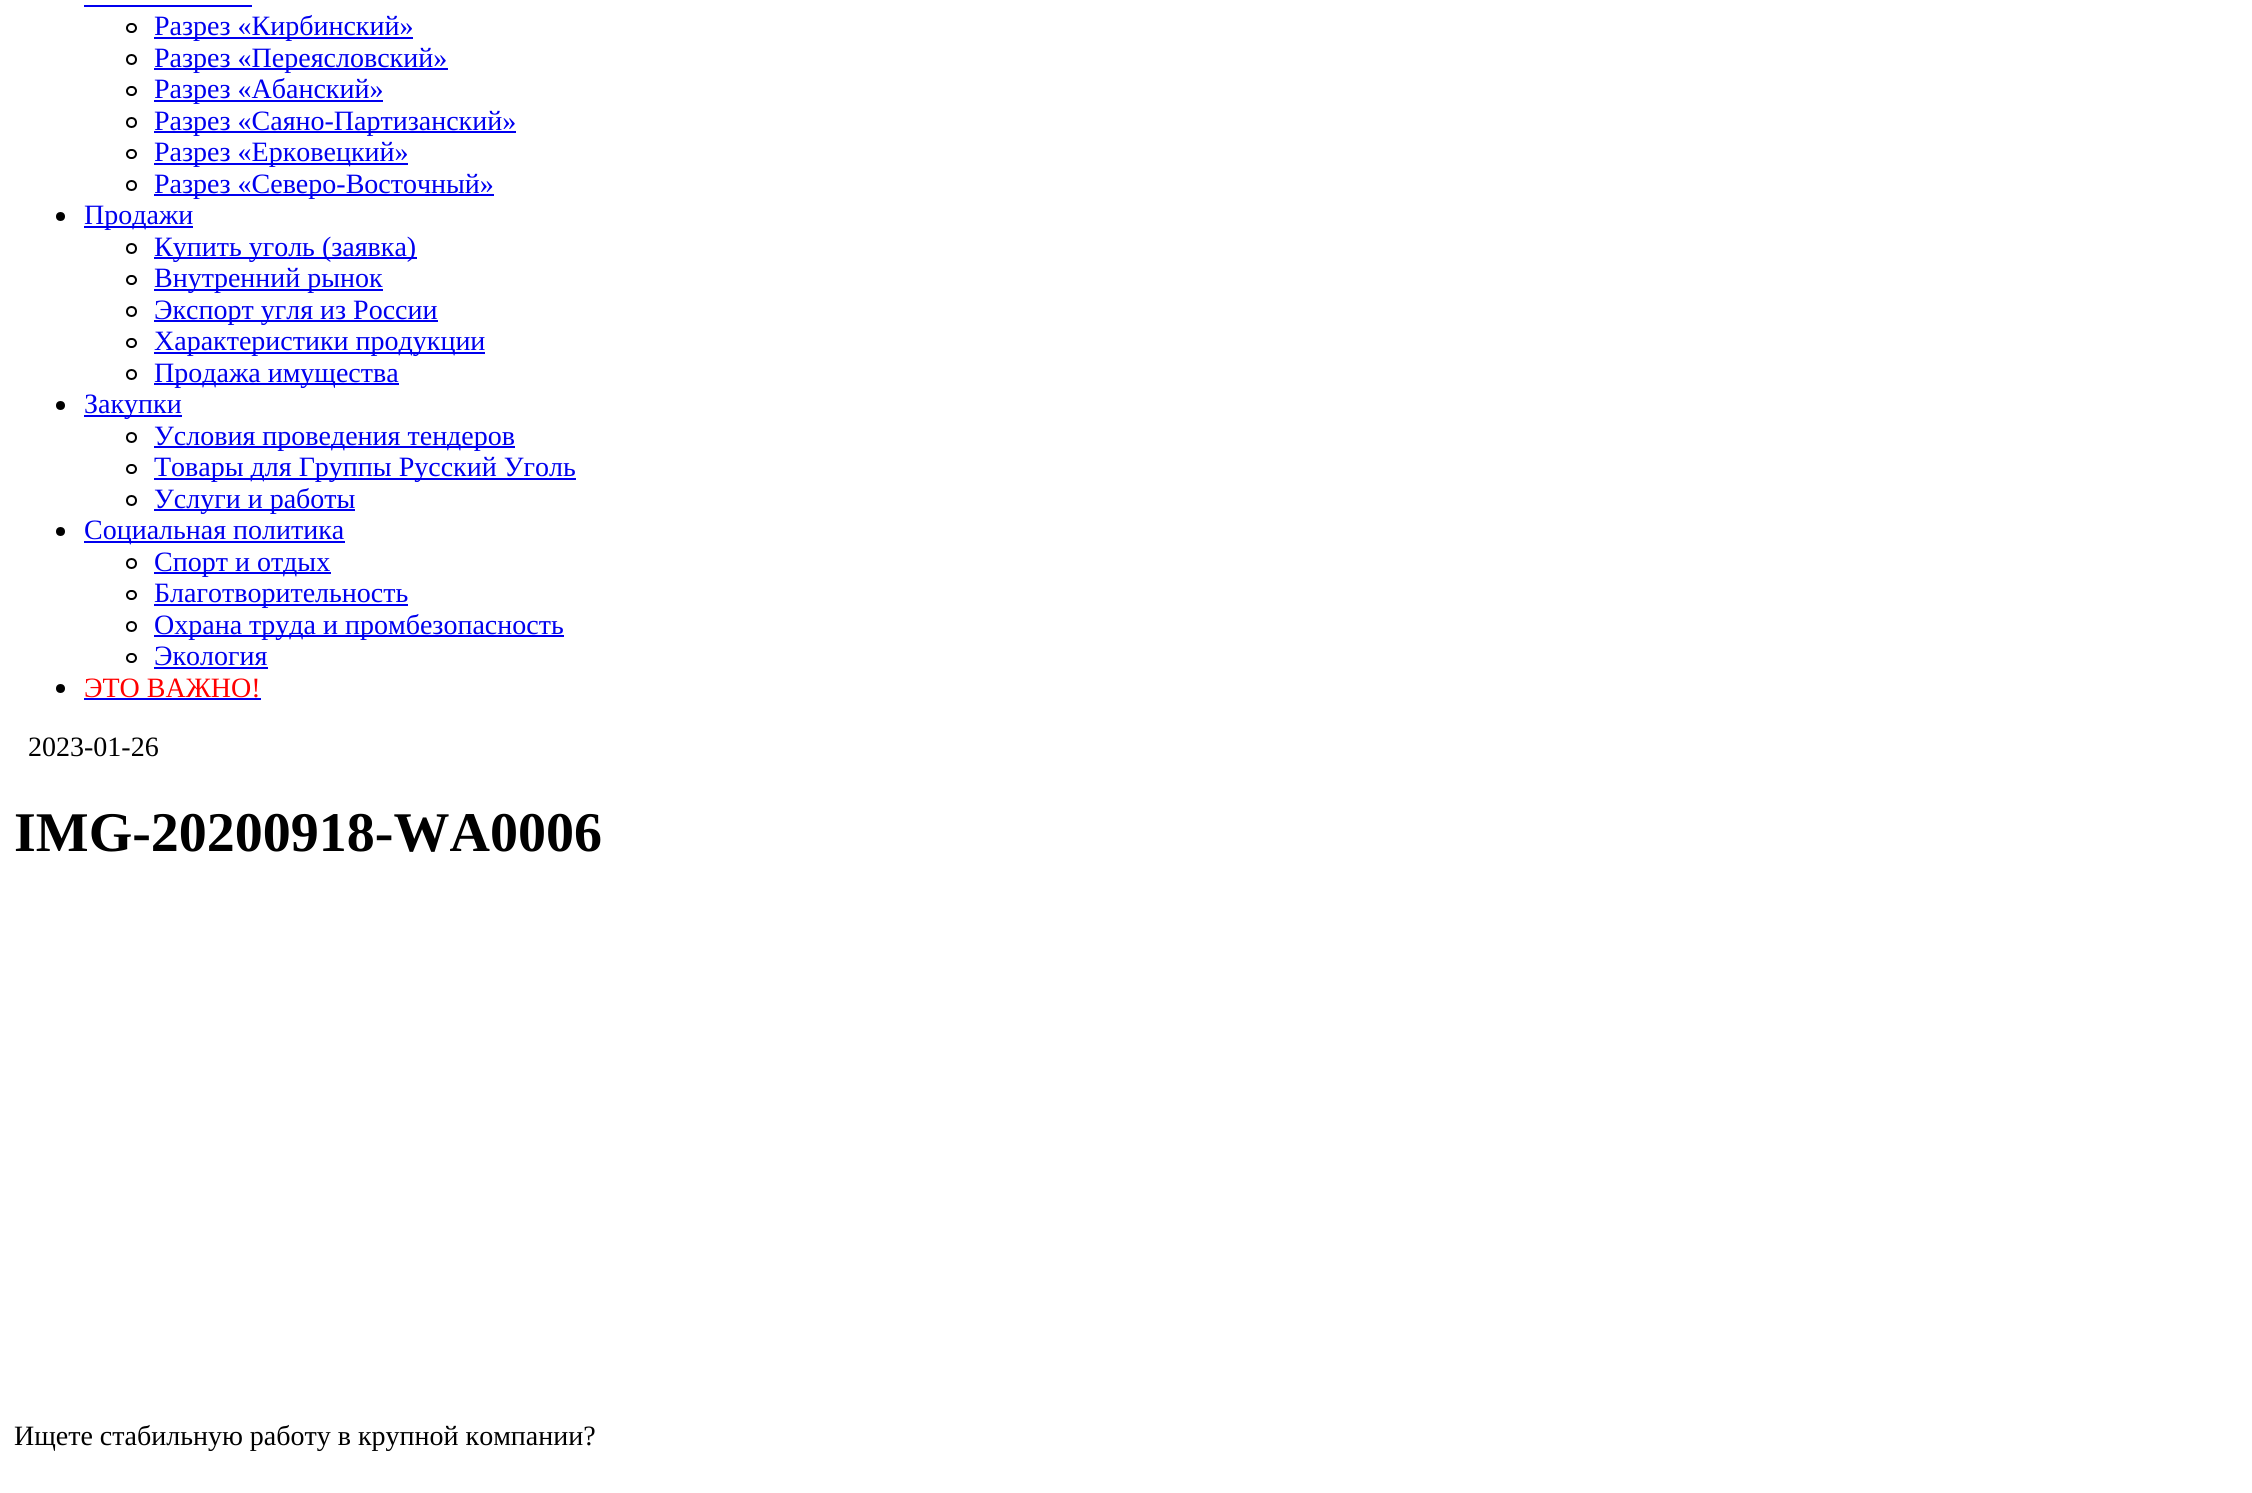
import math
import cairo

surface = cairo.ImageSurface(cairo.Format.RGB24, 2252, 1493)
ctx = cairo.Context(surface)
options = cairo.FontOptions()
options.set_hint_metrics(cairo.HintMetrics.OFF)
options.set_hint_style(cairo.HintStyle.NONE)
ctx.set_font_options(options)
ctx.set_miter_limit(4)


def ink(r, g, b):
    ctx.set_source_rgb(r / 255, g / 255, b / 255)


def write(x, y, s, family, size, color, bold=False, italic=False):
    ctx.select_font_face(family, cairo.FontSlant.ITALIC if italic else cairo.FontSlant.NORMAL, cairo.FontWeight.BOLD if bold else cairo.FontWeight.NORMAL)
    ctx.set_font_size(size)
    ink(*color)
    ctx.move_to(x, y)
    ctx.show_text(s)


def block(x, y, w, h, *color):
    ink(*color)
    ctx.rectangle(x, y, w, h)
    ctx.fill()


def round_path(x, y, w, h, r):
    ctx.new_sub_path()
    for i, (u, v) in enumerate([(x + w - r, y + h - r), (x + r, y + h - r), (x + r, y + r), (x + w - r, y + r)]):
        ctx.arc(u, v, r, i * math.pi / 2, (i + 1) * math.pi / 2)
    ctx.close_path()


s1 = dict(family="Liberation Serif", size=28, color=(0, 0, 238))
s2 = dict(family="Liberation Serif", size=28, color=(255, 0, 0))
s3 = dict(family="Liberation Serif", size=28, color=(0, 0, 0))
s4 = dict(family="Liberation Serif", size=56, color=(0, 0, 0), bold=True)

ink(255, 255, 255)
ctx.paint()
block(84, 5, 168, 2, 0, 0, 238)
round_path(127, 24, 9, 8, 4)
ink(0, 0, 0)
ctx.stroke()
block(154, 37, 259, 2, 0, 0, 238)
write(154, 35, "Разрез «Кирбинский»", **s1)
ctx.new_path()
ctx.arc(131.5, 59.5, 4.5, 0, 2 * math.pi)
ink(0, 0, 0)
ctx.stroke()
block(154, 68, 294, 2, 0, 0, 238)
write(154, 67, "Разрез «Переясловский»", **s1)
round_path(127, 87, 9, 8, 4)
ink(0, 0, 0)
ctx.stroke()
block(154, 100, 229, 2, 0, 0, 238)
write(154, 98, "Разрез «Абанский»", **s1)
ctx.new_path()
ctx.arc(131.5, 122.5, 4.5, 0, 2 * math.pi)
ink(0, 0, 0)
ctx.stroke()
block(154, 131, 362, 2, 0, 0, 238)
write(154, 130, "Разрез «Саяно-Партизанский»", **s1)
round_path(127, 150, 9, 8, 4)
ink(0, 0, 0)
ctx.stroke()
block(154, 163, 254, 2, 0, 0, 238)
write(154, 161, "Разрез «Ерковецкий»", **s1)
ctx.new_path()
ctx.arc(131.5, 185.5, 4.5, 0, 2 * math.pi)
ink(0, 0, 0)
ctx.stroke()
block(154, 194, 340, 2, 0, 0, 238)
write(154, 193, "Разрез «Северо-Восточный»", **s1)
ink(0, 0, 0)
ctx.new_path()
ctx.arc(60.5, 216.5, 4.5, 0, 2 * math.pi)
ctx.fill()
block(84, 226, 109, 2, 0, 0, 238)
write(84, 224, "Продажи", **s1)
ctx.new_path()
ctx.arc(131.5, 248.5, 4.5, 0, 2 * math.pi)
ink(0, 0, 0)
ctx.stroke()
block(154, 257, 263, 2, 0, 0, 238)
write(154, 256, "Купить уголь (заявка)", **s1)
round_path(127, 276, 9, 8, 4)
ink(0, 0, 0)
ctx.stroke()
block(154, 289, 229, 2, 0, 0, 238)
write(154, 287, "Внутренний рынок", **s1)
ctx.new_path()
ctx.arc(131.5, 311.5, 4.5, 0, 2 * math.pi)
ink(0, 0, 0)
ctx.stroke()
block(154, 320, 284, 2, 0, 0, 238)
write(154, 319, "Экспорт угля из России", **s1)
round_path(127, 339, 9, 8, 4)
ink(0, 0, 0)
ctx.stroke()
block(154, 352, 331, 2, 0, 0, 238)
write(154, 350, "Характеристики продукции", **s1)
ctx.new_path()
ctx.arc(131.5, 374.5, 4.5, 0, 2 * math.pi)
ink(0, 0, 0)
ctx.stroke()
block(154, 383, 245, 2, 0, 0, 238)
write(154, 382, "Продажа имущества", **s1)
ink(0, 0, 0)
ctx.new_path()
ctx.arc(60.5, 405.5, 4.5, 0, 2 * math.pi)
ctx.fill()
block(84, 415, 98, 2, 0, 0, 238)
write(84, 413, "Закупки", **s1)
ctx.new_path()
ctx.arc(131.5, 437.5, 4.5, 0, 2 * math.pi)
ink(0, 0, 0)
ctx.stroke()
block(154, 446, 361, 2, 0, 0, 238)
write(154, 445, "Условия проведения тендеров", **s1)
round_path(127, 465, 9, 8, 4)
ink(0, 0, 0)
ctx.stroke()
block(154, 478, 422, 2, 0, 0, 238)
write(154, 476, "Товары для Группы Русский Уголь", **s1)
ctx.new_path()
ctx.arc(131.5, 500.5, 4.5, 0, 2 * math.pi)
ink(0, 0, 0)
ctx.stroke()
block(154, 509, 201, 2, 0, 0, 238)
write(154, 508, "Услуги и работы", **s1)
ink(0, 0, 0)
ctx.new_path()
ctx.arc(60.5, 531.5, 4.5, 0, 2 * math.pi)
ctx.fill()
block(84, 541, 261, 2, 0, 0, 238)
write(84, 539, "Социальная политика", **s1)
ctx.new_path()
ctx.arc(131.5, 563.5, 4.5, 0, 2 * math.pi)
ink(0, 0, 0)
ctx.stroke()
block(154, 572, 177, 2, 0, 0, 238)
write(154, 571, "Спорт и отдых", **s1)
round_path(127, 591, 9, 8, 4)
ink(0, 0, 0)
ctx.stroke()
block(154, 604, 254, 2, 0, 0, 238)
write(154, 602, "Благотворительность", **s1)
ctx.new_path()
ctx.arc(131.5, 626.5, 4.5, 0, 2 * math.pi)
ink(0, 0, 0)
ctx.stroke()
block(154, 635, 410, 2, 0, 0, 238)
write(154, 634, "Охрана труда и промбезопасность", **s1)
round_path(127, 654, 9, 8, 4)
ink(0, 0, 0)
ctx.stroke()
write(154, 665, "Экология", **s1)
block(154, 667, 114, 2, 0, 0, 238)
ink(0, 0, 0)
ctx.new_path()
ctx.arc(60.5, 688.5, 4.5, 0, 2 * math.pi)
ctx.fill()
write(84, 697, "ЭТО ВАЖНО!", **s2)
block(84, 698, 177, 2, 0, 0, 238)
write(28, 756, "2023-01-26", **s3)
write(14, 851, "IMG-20200918-WA0006", **s4)
write(14, 1445, "Ищете стабильную работу в крупной компании?", **s3)
surface.write_to_png("screenshot.png")
